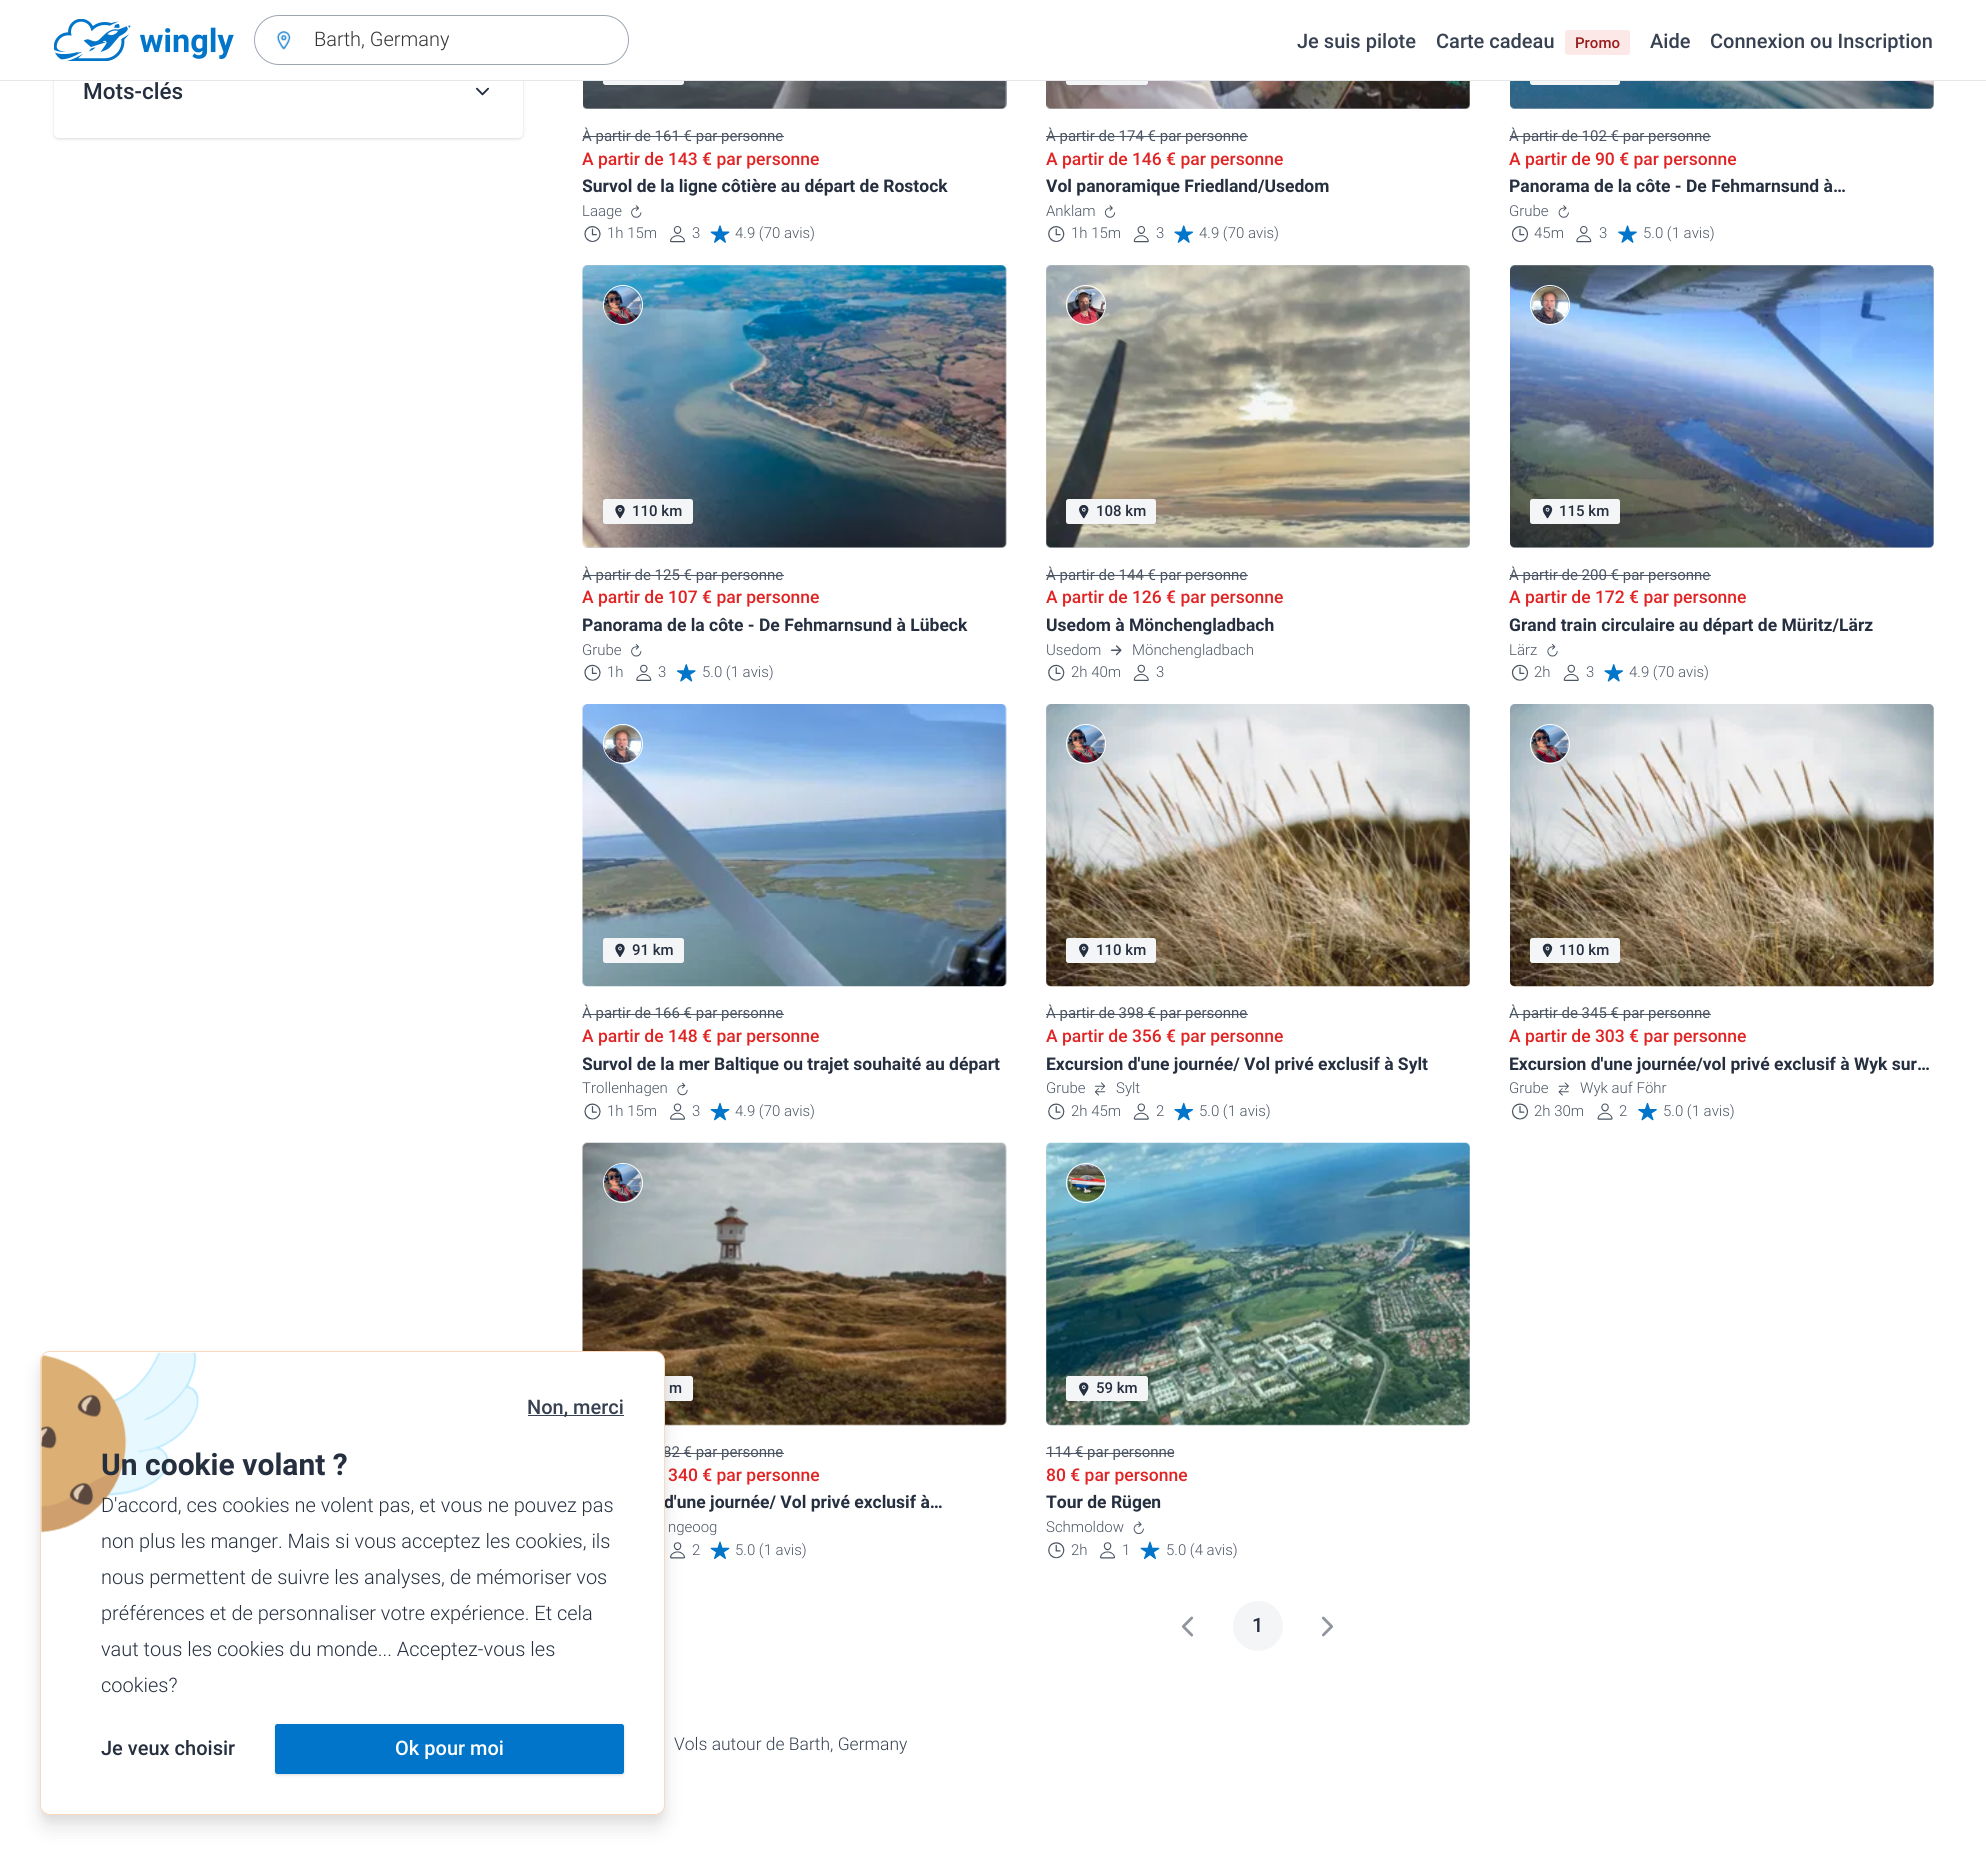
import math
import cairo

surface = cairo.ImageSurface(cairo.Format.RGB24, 1986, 1854)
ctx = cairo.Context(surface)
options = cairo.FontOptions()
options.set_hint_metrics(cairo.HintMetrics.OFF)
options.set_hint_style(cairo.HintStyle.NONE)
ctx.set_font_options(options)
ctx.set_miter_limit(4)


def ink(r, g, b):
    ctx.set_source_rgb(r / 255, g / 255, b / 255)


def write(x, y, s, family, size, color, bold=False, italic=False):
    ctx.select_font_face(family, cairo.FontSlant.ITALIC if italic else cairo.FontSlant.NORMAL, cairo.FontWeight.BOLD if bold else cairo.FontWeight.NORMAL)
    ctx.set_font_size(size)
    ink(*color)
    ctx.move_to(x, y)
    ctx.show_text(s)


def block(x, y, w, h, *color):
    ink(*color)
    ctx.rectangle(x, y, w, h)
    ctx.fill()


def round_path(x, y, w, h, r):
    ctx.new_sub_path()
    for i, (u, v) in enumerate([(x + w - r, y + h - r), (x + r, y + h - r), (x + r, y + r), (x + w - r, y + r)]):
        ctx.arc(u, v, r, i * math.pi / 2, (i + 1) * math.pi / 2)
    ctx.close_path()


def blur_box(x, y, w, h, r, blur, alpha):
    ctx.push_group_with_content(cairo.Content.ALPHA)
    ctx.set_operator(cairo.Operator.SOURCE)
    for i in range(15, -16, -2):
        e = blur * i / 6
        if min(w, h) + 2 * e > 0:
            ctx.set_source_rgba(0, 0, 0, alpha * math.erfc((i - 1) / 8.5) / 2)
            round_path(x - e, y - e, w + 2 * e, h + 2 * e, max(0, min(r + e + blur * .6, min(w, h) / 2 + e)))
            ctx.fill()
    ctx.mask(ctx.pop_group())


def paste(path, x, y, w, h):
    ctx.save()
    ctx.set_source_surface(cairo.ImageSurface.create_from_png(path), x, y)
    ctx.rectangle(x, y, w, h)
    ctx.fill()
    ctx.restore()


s1 = dict(family="Roboto Light", size=20, color=(51, 51, 51))
s2 = dict(family="Roboto Medium", size=20, color=(55, 65, 81))
s3 = dict(family="Roboto Medium", size=15, color=(155, 28, 28))
s4 = dict(family="Roboto Medium", size=22.5, color=(37, 47, 63))
s5 = dict(family="Roboto", size=15, color=(75, 85, 99))
s6 = dict(family="Roboto Medium", size=17.5, color=(224, 36, 36))
s7 = dict(family="Roboto", size=17.5, color=(37, 47, 63), bold=True)
s8 = dict(family="Roboto Light", size=15, color=(75, 85, 99))
s9 = dict(family="Roboto Medium", size=15, color=(37, 47, 63))
s10 = dict(family="Roboto Medium", size=20, color=(37, 47, 63))
s11 = dict(family="Roboto Light", size=17.5, color=(55, 65, 81))
s12 = dict(family="Roboto", size=30, color=(37, 47, 63), bold=True)
s13 = dict(family="Roboto Light", size=20, color=(37, 47, 63))
s14 = dict(family="Roboto Medium", size=20, color=(255, 255, 255))

ink(255, 255, 255)
ctx.paint()
ink(0, 0, 0)
blur_box(54, -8, 469, 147, 5, 1, 0.06)
blur_box(54, -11, 469, 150, 5, 2, 0.1)
ink(255, 255, 255)
round_path(54, -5, 469, 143, 5)
ctx.fill()
ink(210, 214, 220)
round_path(583, -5, 423, 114, 5)
ctx.fill()
paste("pic4.png", 583, 81, 424, 28)
ink(244, 245, 247)
round_path(603, 60, 81, 25, 2.5)
ctx.fill()
ink(210, 214, 220)
round_path(1046, -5, 424, 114, 5)
ctx.fill()
paste("pic9.png", 1046, 81, 424, 28)
ink(244, 245, 247)
round_path(1066, 60, 82, 25, 2.5)
ctx.fill()
ink(210, 214, 220)
round_path(1510, -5, 424, 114, 5)
ctx.fill()
paste("pic14.png", 1510, 81, 424, 28)
ink(244, 245, 247)
round_path(1530, 60, 90, 25, 2.5)
ctx.fill()
block(51, 0, 1883, 80, 255, 255, 255)
block(0, 80, 1986, 1, 229, 231, 235)
paste("pic1.png", 54, 19, 180, 42)
round_path(254.5, 15.5, 374, 49, 24.5)
ink(159, 166, 178)
ctx.set_line_width(1)
ctx.stroke()
paste("pic2.png", 276, 31, 15, 19)
write(314, 46, "Barth, Germany", **s1)
write(1297, 48, "Je suis pilote", **s2)
write(1436, 48, "Carte cadeau", **s2)
ink(253, 232, 232)
round_path(1565, 30, 65, 25, 2.5)
ctx.fill()
write(1575, 48, "Promo", **s3)
write(1650, 48, "Aide", **s2)
write(1710, 48, "Connexion ou Inscription", **s2)
write(83, 99, "Mots-clés", **s4)
paste("pic3.png", 476, 87, 13, 9)
write(582, 141, "À partir de 161 € par personne", **s5)
block(583, 136, 201, 1, 75, 85, 99)
write(582, 165, "A partir de 143 € par personne", **s6)
ctx.save()
ctx.rectangle(583, 174, 423, 26)
ctx.clip()
write(582, 192, "Survol de la ligne côtière au départ de Rostock", **s7)
ctx.restore()
write(582, 216, "Laage", **s8)
paste("pic5.png", 631, 205, 11, 13)
paste("pic6.png", 584, 226, 17, 16)
write(607, 238, "1h 15m", **s8)
paste("pic7.png", 670, 226, 15, 17)
write(692, 238, "3", **s8)
paste("pic8.png", 710, 225, 20, 18)
write(735, 238, "4.9 (70 avis)", **s8)
write(1046, 141, "À partir de 174 € par personne", **s5)
block(1046, 136, 202, 1, 75, 85, 99)
write(1046, 165, "A partir de 146 € par personne", **s6)
write(1046, 192, "Vol panoramique Friedland/Usedom", **s7)
write(1046, 216, "Anklam", **s8)
paste("pic10.png", 1104, 205, 12, 13)
paste("pic11.png", 1048, 226, 17, 16)
write(1071, 238, "1h 15m", **s8)
paste("pic12.png", 1133, 226, 16, 17)
write(1156, 238, "3", **s8)
paste("pic13.png", 1174, 225, 20, 18)
write(1199, 238, "4.9 (70 avis)", **s8)
write(1509, 141, "À partir de 102 € par personne", **s5)
block(1510, 136, 201, 1, 75, 85, 99)
write(1509, 165, "A partir de 90 € par personne", **s6)
write(1509, 192, "Panorama de la côte - De Fehmarnsund à…", **s7)
write(1509, 216, "Grube", **s8)
paste("pic15.png", 1558, 205, 11, 13)
paste("pic16.png", 1511, 226, 18, 16)
write(1534, 238, "45m", **s8)
paste("pic17.png", 1576, 226, 16, 17)
write(1599, 238, "3", **s8)
paste("pic18.png", 1618, 225, 19, 18)
write(1643, 238, "5.0 (1 avis)", **s8)
ink(210, 214, 220)
round_path(583, 265, 423, 283, 5)
ctx.fill()
paste("pic19.png", 582, 265, 425, 283)
ctx.arc(623, 305, 19.5, 0, 2 * math.pi)
ink(255, 255, 255)
ctx.stroke()
paste("pic20.png", 603, 286, 39, 38)
ink(244, 245, 247)
round_path(603, 499, 90, 25, 2.5)
ctx.fill()
paste("pic21.png", 615, 505, 10, 14)
write(632, 516, "110 km", **s9)
write(582, 580, "À partir de 125 € par personne", **s5)
block(583, 575, 201, 1, 75, 85, 99)
write(582, 603, "A partir de 107 € par personne", **s6)
write(582, 631, "Panorama de la côte - De Fehmarnsund à Lübeck", **s7)
write(582, 655, "Grube", **s8)
paste("pic22.png", 631, 644, 11, 13)
paste("pic23.png", 584, 664, 17, 17)
write(607, 677, "1h", **s8)
paste("pic24.png", 636, 664, 16, 17)
write(658, 677, "3", **s8)
paste("pic25.png", 676, 664, 20, 18)
write(702, 677, "5.0 (1 avis)", **s8)
ink(210, 214, 220)
round_path(1046, 265, 424, 283, 5)
ctx.fill()
paste("pic26.png", 1046, 265, 424, 283)
ctx.arc(1086, 305, 19.5, 0, 2 * math.pi)
ink(255, 255, 255)
ctx.stroke()
paste("pic27.png", 1067, 286, 38, 38)
ink(244, 245, 247)
round_path(1066, 499, 90, 25, 2.5)
ctx.fill()
paste("pic28.png", 1079, 505, 10, 14)
write(1096, 516, "108 km", **s9)
write(1046, 580, "À partir de 144 € par personne", **s5)
block(1046, 575, 202, 1, 75, 85, 99)
write(1046, 603, "A partir de 126 € par personne", **s6)
write(1046, 631, "Usedom à Mönchengladbach", **s7)
write(1046, 655, "Usedom", **s8)
paste("pic29.png", 1111, 645, 11, 11)
write(1132, 655, "Mönchengladbach", **s8)
paste("pic30.png", 1048, 664, 17, 17)
write(1071, 677, "2h 40m", **s8)
paste("pic31.png", 1133, 664, 16, 17)
write(1156, 677, "3", **s8)
ink(210, 214, 220)
round_path(1510, 265, 424, 283, 5)
ctx.fill()
paste("pic32.png", 1510, 265, 424, 283)
ctx.arc(1550, 305, 19.5, 0, 2 * math.pi)
ink(255, 255, 255)
ctx.stroke()
paste("pic33.png", 1531, 286, 38, 38)
ink(244, 245, 247)
round_path(1530, 499, 90, 25, 2.5)
ctx.fill()
paste("pic34.png", 1542, 505, 11, 14)
write(1559, 516, "115 km", **s9)
write(1509, 580, "À partir de 200 € par personne", **s5)
block(1510, 575, 201, 1, 75, 85, 99)
write(1509, 603, "A partir de 172 € par personne", **s6)
write(1509, 631, "Grand train circulaire au départ de Müritz/Lärz", **s7)
write(1509, 655, "Lärz", **s8)
paste("pic35.png", 1547, 644, 11, 13)
paste("pic36.png", 1511, 664, 18, 17)
write(1534, 677, "2h", **s8)
paste("pic37.png", 1563, 664, 16, 17)
write(1586, 677, "3", **s8)
paste("pic38.png", 1604, 664, 19, 18)
write(1629, 677, "4.9 (70 avis)", **s8)
paste("pic39.png", 582, 704, 425, 283)
ctx.arc(623, 744, 19.5, 0, 2 * math.pi)
ink(255, 255, 255)
ctx.stroke()
paste("pic40.png", 604, 725, 38, 38)
ink(244, 245, 247)
round_path(603, 938, 81, 25, 2.5)
ctx.fill()
paste("pic41.png", 615, 943, 10, 14)
write(632, 955, "91 km", **s9)
write(582, 1018, "À partir de 166 € par personne", **s5)
block(583, 1014, 201, 1, 75, 85, 99)
write(582, 1042, "A partir de 148 € par personne", **s6)
ctx.save()
ctx.rectangle(583, 1051, 423, 27)
ctx.clip()
write(582, 1070, "Survol de la mer Baltique ou trajet souhaité au départ", **s7)
ctx.restore()
write(582, 1093, "Trollenhagen", **s8)
paste("pic42.png", 677, 1082, 11, 14)
paste("pic43.png", 584, 1103, 17, 17)
write(607, 1116, "1h 15m", **s8)
paste("pic44.png", 670, 1103, 15, 17)
write(692, 1116, "3", **s8)
paste("pic45.png", 710, 1102, 20, 19)
write(735, 1116, "4.9 (70 avis)", **s8)
ink(210, 214, 220)
round_path(1046, 704, 424, 282, 5)
ctx.fill()
paste("pic46.png", 1046, 704, 424, 283)
ctx.arc(1086, 744, 19.5, 0, 2 * math.pi)
ink(255, 255, 255)
ctx.stroke()
paste("pic47.png", 1067, 725, 38, 38)
ink(244, 245, 247)
round_path(1066, 938, 90, 25, 2.5)
ctx.fill()
paste("pic48.png", 1079, 943, 10, 14)
write(1096, 955, "110 km", **s9)
write(1046, 1018, "À partir de 398 € par personne", **s5)
block(1046, 1014, 202, 1, 75, 85, 99)
write(1046, 1042, "A partir de 356 € par personne", **s6)
write(1046, 1070, "Excursion d'une journée/ Vol privé exclusif à Sylt", **s7)
write(1046, 1093, "Grube", **s8)
paste("pic49.png", 1094, 1082, 12, 14)
write(1116, 1093, "Sylt", **s8)
paste("pic50.png", 1048, 1103, 17, 17)
write(1071, 1116, "2h 45m", **s8)
paste("pic51.png", 1133, 1103, 16, 17)
write(1156, 1116, "2", **s8)
paste("pic52.png", 1174, 1102, 20, 19)
write(1199, 1116, "5.0 (1 avis)", **s8)
ink(210, 214, 220)
round_path(1510, 704, 424, 282, 5)
ctx.fill()
paste("pic53.png", 1510, 704, 424, 283)
ctx.arc(1550, 744, 19.5, 0, 2 * math.pi)
ink(255, 255, 255)
ctx.stroke()
paste("pic54.png", 1531, 725, 38, 38)
ink(244, 245, 247)
round_path(1530, 938, 90, 25, 2.5)
ctx.fill()
paste("pic55.png", 1542, 943, 11, 14)
write(1559, 955, "110 km", **s9)
write(1509, 1018, "À partir de 345 € par personne", **s5)
block(1510, 1014, 201, 1, 75, 85, 99)
write(1509, 1042, "A partir de 303 € par personne", **s6)
write(1509, 1070, "Excursion d'une journée/vol privé exclusif à Wyk sur…", **s7)
write(1509, 1093, "Grube", **s8)
paste("pic56.png", 1558, 1082, 11, 14)
write(1580, 1093, "Wyk auf Föhr", **s8)
paste("pic57.png", 1511, 1103, 18, 17)
write(1534, 1116, "2h 30m", **s8)
paste("pic58.png", 1597, 1103, 16, 17)
write(1619, 1116, "2", **s8)
paste("pic59.png", 1638, 1102, 19, 19)
write(1663, 1116, "5.0 (1 avis)", **s8)
paste("pic60.png", 582, 1142, 425, 284)
ctx.arc(623, 1183, 19.5, 0, 2 * math.pi)
ink(255, 255, 255)
ctx.stroke()
paste("pic61.png", 603, 1164, 38, 38)
ink(244, 245, 247)
round_path(603, 1376, 90, 25, 2.5)
ctx.fill()
write(669, 1393, "m", **s9)
write(663, 1457, "82 € par personne", **s5)
block(665, 1453, 119, 1, 75, 85, 99)
write(668, 1481, "340 € par personne", **s6)
write(664, 1508, "d'une journée/ Vol privé exclusif à…", **s7)
write(668, 1532, "ngeoog", **s8)
paste("pic62.png", 670, 1542, 16, 17)
write(692, 1555, "2", **s8)
paste("pic63.png", 710, 1541, 20, 18)
write(735, 1555, "5.0 (1 avis)", **s8)
ink(210, 214, 220)
round_path(1046, 1143, 424, 282, 5)
ctx.fill()
paste("pic64.png", 1046, 1142, 424, 284)
ctx.arc(1086, 1183, 19.5, 0, 2 * math.pi)
ink(255, 255, 255)
ctx.stroke()
paste("pic65.png", 1067, 1164, 38, 38)
ink(244, 245, 247)
round_path(1066, 1376, 82, 25, 2.5)
ctx.fill()
paste("pic66.png", 1079, 1382, 10, 14)
write(1096, 1393, "59 km", **s9)
write(1046, 1457, "114 € par personne", **s5)
block(1046, 1453, 128, 1, 75, 85, 99)
write(1046, 1481, "80 € par personne", **s6)
write(1046, 1508, "Tour de Rügen", **s7)
write(1046, 1532, "Schmoldow", **s8)
paste("pic67.png", 1133, 1521, 11, 13)
paste("pic68.png", 1048, 1542, 17, 17)
write(1071, 1555, "2h", **s8)
paste("pic62.png", 1100, 1542, 16, 17)
write(1122, 1555, "1", **s8)
paste("pic63.png", 1140, 1541, 20, 18)
write(1166, 1555, "5.0 (4 avis)", **s8)
paste("pic69.png", 1181, 1616, 13, 21)
ink(244, 245, 247)
ctx.arc(1258, 1626, 25, 0, 2 * math.pi)
ctx.fill()
write(1252, 1632, "1", **s10)
paste("pic70.png", 1322, 1616, 12, 21)
write(674, 1750, "Vols autour de Barth, Germany", **s11)
ink(0, 0, 0)
blur_box(40, 1364, 625, 464, 10, 9.5, 0.1)
blur_box(40, 1356, 625, 464, 10, 4, 0.05)
ink(255, 255, 255)
round_path(40.5, 1351.5, 624, 463, 9.5)
ctx.fill_preserve()
ink(252, 217, 189)
ctx.stroke()
paste("pic71.png", 41, 1352, 159, 181)
block(528, 1415, 96, 1, 55, 65, 81)
write(527, 1414, "Non, merci", **s2)
write(101, 1475, "Un cookie volant ?", **s12)
write(101, 1512, "D'accord, ces cookies ne volent pas, et vous ne pouvez pas", **s13)
write(101, 1548, "non plus les manger. Mais si vous acceptez les cookies, ils", **s13)
write(101, 1584, "nous permettent de suivre les analyses, de mémoriser vos", **s13)
write(101, 1620, "préférences et de personnaliser votre expérience. Et cela", **s13)
write(101, 1656, "vaut tous les cookies du monde... Acceptez-vous les", **s13)
write(101, 1692, "cookies?", **s13)
write(101, 1755, "Je veux choisir", **s10)
ink(0, 0, 0)
blur_box(275, 1725, 349, 50, 2.5, 1, 0.06)
blur_box(275, 1725, 349, 50, 2.5, 2, 0.1)
ink(0, 117, 201)
round_path(275, 1724, 349, 50, 2.5)
ctx.fill()
write(395, 1755, "Ok pour moi", **s14)
surface.write_to_png("screenshot.png")
